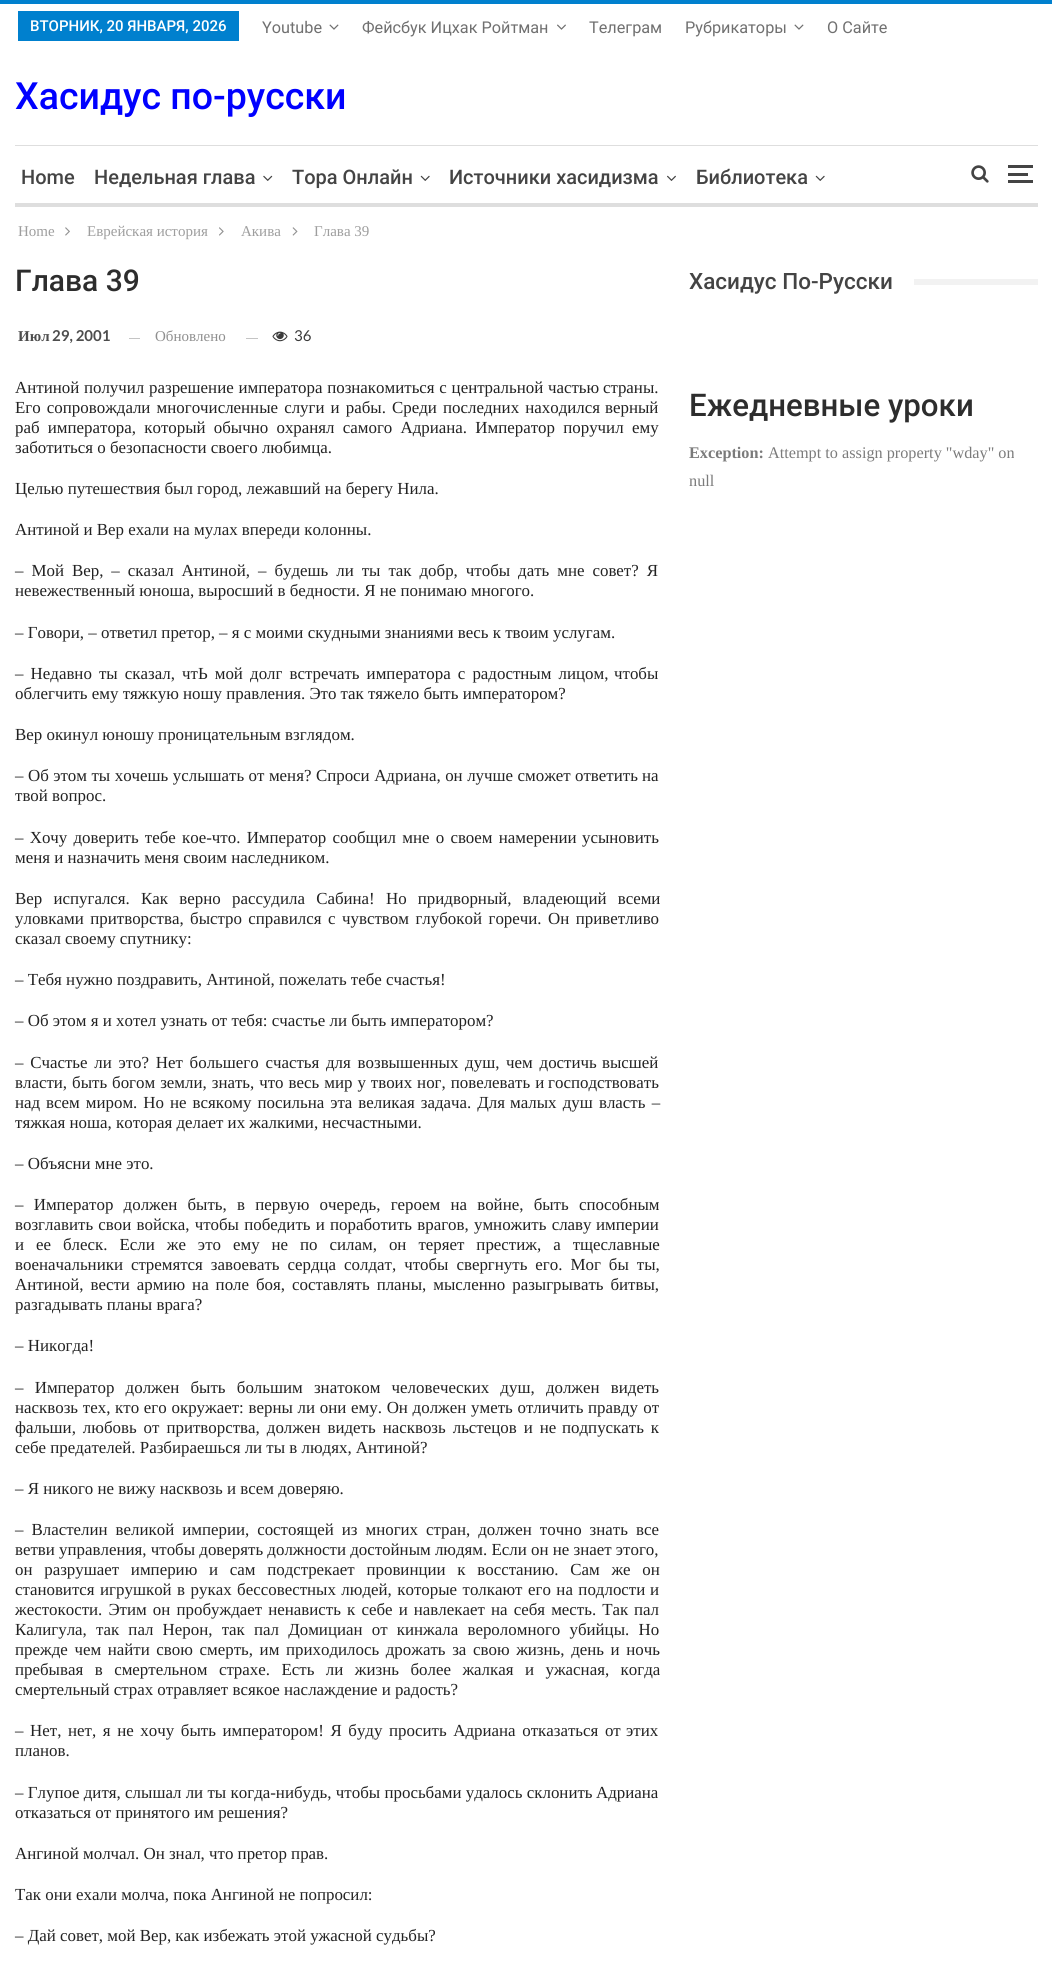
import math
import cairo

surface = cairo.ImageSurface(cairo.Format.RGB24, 1052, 1963)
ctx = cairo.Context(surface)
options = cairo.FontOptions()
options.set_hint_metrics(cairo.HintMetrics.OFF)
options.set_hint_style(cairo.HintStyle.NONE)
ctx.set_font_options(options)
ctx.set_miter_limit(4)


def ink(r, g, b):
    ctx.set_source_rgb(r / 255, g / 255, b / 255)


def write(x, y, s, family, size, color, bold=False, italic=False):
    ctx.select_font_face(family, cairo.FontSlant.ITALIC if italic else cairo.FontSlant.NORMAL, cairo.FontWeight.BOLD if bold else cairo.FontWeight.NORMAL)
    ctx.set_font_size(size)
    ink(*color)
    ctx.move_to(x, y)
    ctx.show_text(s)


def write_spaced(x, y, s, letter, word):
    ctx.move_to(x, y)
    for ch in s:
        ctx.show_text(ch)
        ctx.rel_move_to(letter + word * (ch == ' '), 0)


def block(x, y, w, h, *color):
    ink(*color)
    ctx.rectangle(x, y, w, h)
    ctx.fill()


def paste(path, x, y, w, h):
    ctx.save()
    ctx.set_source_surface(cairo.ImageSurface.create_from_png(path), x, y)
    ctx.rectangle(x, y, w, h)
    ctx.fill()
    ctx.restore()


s1 = dict(family="Roboto Medium", size=15, color=(255, 255, 255))
s2 = dict(family="Roboto", size=16.25, color=(112, 112, 112))
s3 = dict(family="Roboto Medium", size=37.5, color=(0, 0, 255))
s4 = dict(family="Roboto Medium", size=20, color=(68, 68, 68))
s5 = dict(family="Liberation Serif", size=15, color=(158, 158, 158))
s6 = dict(family="Roboto Medium", size=30, color=(45, 45, 45))
s7 = dict(family="Liberation Serif", size=15, color=(77, 77, 77), bold=True)
s8 = dict(family="Lato", size=15, color=(77, 77, 77), bold=True)
s9 = dict(family="Liberation Serif", size=15, color=(143, 143, 143))
s10 = dict(family="Lato", size=15, color=(58, 58, 58))
s11 = dict(family="Liberation Serif", size=16.9, color=(34, 34, 34))
s12 = dict(family="Roboto Medium", size=22.5, color=(68, 68, 68))
s13 = dict(family="Roboto Medium", size=31.25, color=(45, 45, 45))
s14 = dict(family="Liberation Serif", size=16.25, color=(123, 123, 123), bold=True)
s15 = dict(family="Liberation Serif", size=16.25, color=(123, 123, 123))

ink(255, 255, 255)
ctx.paint()
block(0, 0, 1052, 4, 0, 128, 206)
block(18, 11, 221, 30, 0, 128, 206)
write(30, 31, "ВТОРНИК, 20 ЯНВАРЯ, 2026", **s1)
write(262, 33, "Youtube", **s2)
paste("pic1.png", 329, 24, 10, 6)
write(362, 33, "Фейсбук Ицхак Ройтман", **s2)
paste("pic2.png", 557, 24, 9, 6)
write(589, 33, "Телеграм", **s2)
write(685, 33, "Рубрикаторы", **s2)
paste("pic1.png", 794, 24, 10, 6)
write(827, 33, "О Сайте", **s2)
write(15, 109, "Хасидус по-русски", **s3)
block(15, 145, 1023, 1, 222, 222, 222)
block(15, 203, 1023, 4, 222, 222, 222)
write(21, 184, "Home", **s4)
write(94, 184, "Недельная глава", **s4)
paste("pic3.png", 263, 175, 10, 6)
write(292, 184, "Тора Онлайн", **s4)
paste("pic4.png", 420, 175, 10, 6)
write(449, 184, "Источники хасидизма", **s4)
paste("pic5.png", 667, 175, 9, 6)
write(696, 184, "Библиотека", **s4)
paste("pic4.png", 815, 175, 10, 6)
paste("pic6.png", 971, 165, 18, 18)
block(1008, 173, 20, 3, 68, 68, 68)
block(1008, 165, 25, 3, 68, 68, 68)
block(1008, 180, 25, 3, 68, 68, 68)
write(18, 236, "Home", **s5)
paste("pic7.png", 65, 227, 5, 9)
write(87, 236, "Еврейская история", **s5)
paste("pic8.png", 219, 227, 5, 9)
write(241, 236, "Акива", **s5)
paste("pic9.png", 292, 227, 6, 9)
write(314, 236, "Глава 39", **s5)
write(15, 291, "Глава 39", **s6)
write(18, 341, "Июл", **s7)
write(52, 341, "29, 2001", **s8)
block(129, 338, 11, 1, 196, 196, 196)
write(155, 341, "Обновлено", **s9)
block(246, 338, 12, 1, 196, 196, 196)
paste("pic10.png", 272, 331, 16, 11)
write(294, 341, "36", **s10)
ctx.select_font_face("Liberation Serif")
ctx.set_font_size(16.9)
ink(34, 34, 34)
write_spaced(15, 393, "Антиной получил разрешение императора познакомиться с центральной частью", 0, 0.5)
write(603, 393, "страны.", **s11)
write_spaced(15, 413, "Его сопровождали многочисленные слуги и рабы. Среди последних находился", 0, 1.9)
write(605, 413, "верный", **s11)
write_spaced(15, 433, "раб императора, который обычно охранял самого Адриана. Император поручил", 0, 4)
write(632, 433, "ему", **s11)
write(15, 453, "заботиться о безопасности своего любимца.", **s11)
write(15, 494, "Целью путешествия был город, лежавший на берегу Нила.", **s11)
write(15, 535, "Антиной и Вер ехали на мулах впереди колонны.", **s11)
write_spaced(15, 576, "– Мой Вер, – сказал Антиной, – будешь ли ты так добр, чтобы дать мне совет? Я", 0, 3.75)
write(15, 596, "невежественный юноша, выросший в бедности. Я не понимаю многого.", **s11)
write(15, 638, "– Говори, – ответил претор, – я с моими скудными знаниями весь к твоим услугам.", **s11)
write_spaced(15, 679, "– Недавно ты сказал, чтЬ мой долг встречать императора с радостным лицом,", 0, 2.9)
write(614, 679, "чтобы", **s11)
write(15, 699, "облегчить ему тяжкую ношу правления. Это так тяжело быть императором?", **s11)
write(15, 740, "Вер окинул юношу проницательным взглядом.", **s11)
write_spaced(15, 781, "– Об этом ты хочешь услышать от меня? Спроси Адриана, он лучше сможет", 0, 0.25)
write(575, 781, "ответить на", **s11)
write(15, 801, "твой вопрос.", **s11)
write_spaced(15, 843, "– Хочу доверить тебе кое-что. Император сообщил мне о своем намерении", 0, 2)
write(582, 843, "усыновить", **s11)
write(15, 863, "меня и назначить меня своим наследником.", **s11)
write_spaced(15, 904, "Вер испугался. Как верно рассудила Сабина! Но придворный, владеющий всеми", 0, 7)
write_spaced(15, 924, "уловками притворства, быстро справился с чувством глубокой горечи. Он приветливо", 0, 2.25)
write(15, 944, "сказал своему спутнику:", **s11)
write(15, 985, "– Тебя нужно поздравить, Антиной, пожелать тебе счастья!", **s11)
write(15, 1026, "– Об этом я и хотел узнать от тебя: счастье ли быть императором?", **s11)
write_spaced(15, 1068, "– Счастье ли это? Нет большего счастья для возвышенных душ, чем достичь", 0, 2.5)
write(602, 1068, "высшей", **s11)
write_spaced(15, 1088, "власти, быть богом земли, знать, что весь мир у твоих ног, повелевать и", 0, 0.75)
write(548, 1088, "господствовать", **s11)
write_spaced(15, 1108, "над всем миром. Но не всякому посильна эта великая задача. Для", 0, 1.75)
write_spaced(510, 1108, "малых душ власть –", 0, 2)
write(15, 1128, "тяжкая ноша, которая делает их жалкими, несчастными.", **s11)
write(15, 1169, "– Объясни мне это.", **s11)
write_spaced(15, 1210, "– Император должен быть, в первую очередь, героем на войне, быть способным", 0, 6)
write_spaced(15, 1230, "возглавить свои войска, чтобы победить и поработить врагов, умножить славу", 0, 1)
write(596, 1230, "империи", **s11)
write_spaced(15, 1250, "и ее блеск. Если же это ему не по силам, он теряет престиж, а тщеславные", 0, 7.75)
write_spaced(15, 1270, "военачальники стремятся завоевать сердца солдат, чтобы свергнуть его. Мог бы ты,", 0, 3.75)
write_spaced(15, 1290, "Антиной, вести армию на поле боя, составлять планы, мысленно разыгрывать битвы,", 0, 2.75)
write(15, 1310, "разгадывать планы врага?", **s11)
write(15, 1351, "– Никогда!", **s11)
write_spaced(15, 1393, "– Император должен быть большим знатоком человеческих душ, должен видеть", 0, 7)
write_spaced(15, 1413, "насквозь тех, кто его окружает: верны ли они ему. Он должен уметь отличить", 0, 0.5)
write_spaced(588, 1413, "правду от", 0, 1)
write_spaced(15, 1433, "фальши, любовь от притворства, должен видеть насквозь льстецов и не", 0, 2.75)
write_spaced(562, 1433, "подпускать к", 0, 2.75)
write(15, 1453, "себе предателей. Разбираешься ли ты в людях, Антиной?", **s11)
write(15, 1494, "– Я никого не вижу насквозь и всем доверяю.", **s11)
write_spaced(15, 1535, "– Властелин великой империи, состоящей из многих стран, должен точно знать", 0, 3.75)
write(636, 1535, "все", **s11)
write(15, 1555, "ветви управления, чтобы доверять должности достойным людям. Если он не знает этого,", **s11)
write_spaced(15, 1575, "он разрушает империю и сам подстрекает провинции к восстанию. Сам же он", 0, 7.5)
write_spaced(15, 1595, "становится игрушкой в руках бессовестных людей, которые толкают его на подлости", 0, 1.25)
write(650, 1595, "и", **s11)
write_spaced(15, 1615, "жестокости. Этим он пробуждает ненависть к себе и навлекает на себя месть. Так", 0, 1.9)
write(634, 1615, "пал", **s11)
write_spaced(15, 1635, "Калигула, так пал Нерон, так пал Домициан от кинжала вероломного убийцы. Но", 0, 5)
write_spaced(15, 1655, "прежде чем найти свою смерть, им приходилось дрожать за свою жизнь, день и ночь", 0, 2.4)
write_spaced(15, 1675, "пребывая в смертельном страхе. Есть ли жизнь более жалкая и ужасная, когда", 0, 7.25)
write(15, 1695, "смертельный страх отравляет всякое наслаждение и радость?", **s11)
write_spaced(15, 1736, "– Нет, нет, я не хочу быть императором! Я буду просить Адриана отказаться от", 0, 2.4)
write(626, 1736, "этих", **s11)
write(15, 1756, "планов.", **s11)
write_spaced(15, 1798, "– Глупое дитя, слышал ли ты когда-нибудь, чтобы просьбами удалось склонить", 0, 0.1)
write(596, 1798, "Адриана", **s11)
write(15, 1818, "отказаться от принятого им решения?", **s11)
write(15, 1859, "Ангиной молчал. Он знал, что претор прав.", **s11)
write(15, 1900, "Так они ехали молча, пока Ангиной не попросил:", **s11)
write(15, 1941, "– Дай совет, мой Вер, как избежать этой ужасной судьбы?", **s11)
write(689, 289, "Хасидус По-Русски", **s12)
block(914, 279, 124, 6, 242, 242, 242)
write(689, 416, "Ежедневные уроки", **s13)
write(689, 458, "Exception:", **s14)
write(768, 458, "Attempt to assign property \"wday\" on", **s15)
write(689, 486, "null", **s15)
surface.write_to_png("screenshot.png")
